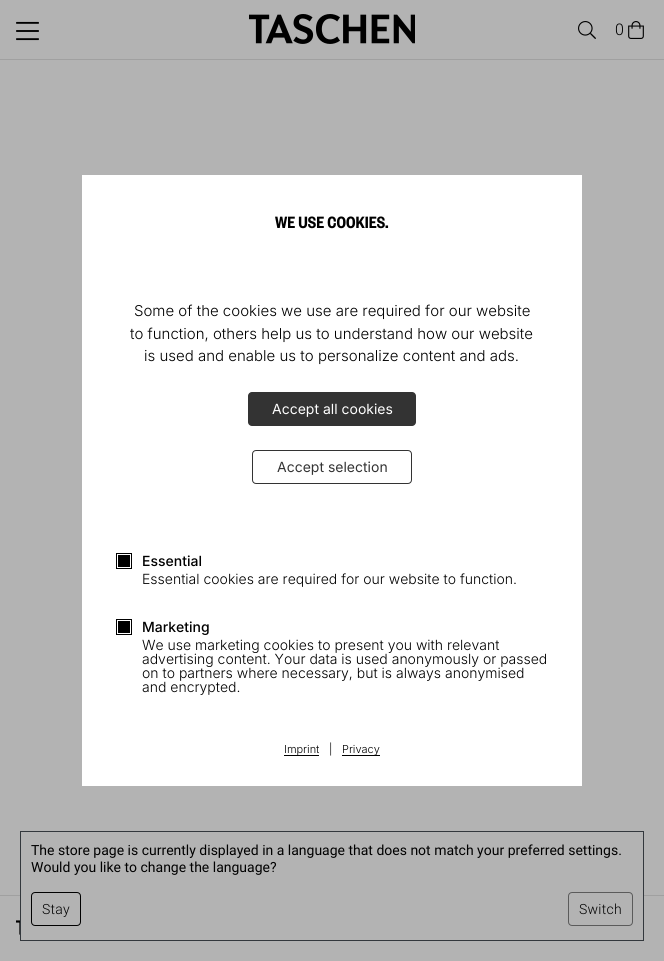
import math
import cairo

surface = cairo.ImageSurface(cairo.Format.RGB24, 664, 961)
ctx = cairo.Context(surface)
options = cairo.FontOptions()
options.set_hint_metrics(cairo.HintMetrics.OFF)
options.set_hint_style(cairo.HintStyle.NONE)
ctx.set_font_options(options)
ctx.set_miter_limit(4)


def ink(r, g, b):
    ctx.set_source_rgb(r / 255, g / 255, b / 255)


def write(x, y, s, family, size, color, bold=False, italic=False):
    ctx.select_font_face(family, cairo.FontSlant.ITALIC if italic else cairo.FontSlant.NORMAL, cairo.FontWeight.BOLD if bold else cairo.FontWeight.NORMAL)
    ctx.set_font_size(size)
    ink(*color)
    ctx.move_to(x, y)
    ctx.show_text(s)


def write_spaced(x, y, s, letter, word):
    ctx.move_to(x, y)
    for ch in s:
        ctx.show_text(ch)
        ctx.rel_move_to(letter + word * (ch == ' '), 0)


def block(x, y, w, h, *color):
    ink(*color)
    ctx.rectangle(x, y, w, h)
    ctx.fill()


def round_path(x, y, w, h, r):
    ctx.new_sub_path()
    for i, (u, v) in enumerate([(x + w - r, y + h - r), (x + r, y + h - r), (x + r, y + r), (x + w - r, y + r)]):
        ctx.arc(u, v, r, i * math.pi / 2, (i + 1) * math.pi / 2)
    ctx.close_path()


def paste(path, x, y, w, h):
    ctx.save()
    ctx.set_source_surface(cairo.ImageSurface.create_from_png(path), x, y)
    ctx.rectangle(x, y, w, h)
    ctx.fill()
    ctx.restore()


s1 = dict(family="Roboto", size=14, color=(0, 0, 0))
s2 = dict(family="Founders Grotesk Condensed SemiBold", size=18, color=(0, 0, 0))
s3 = dict(family="Inter Light", size=15, color=(0, 0, 0))
s4 = dict(family="Inter", size=14, color=(255, 255, 255))
s5 = dict(family="Inter", size=14, color=(51, 51, 51))
s6 = dict(family="Inter Medium", size=14, color=(0, 0, 0))
s7 = dict(family="Inter Light", size=14, color=(0, 0, 0))
s8 = dict(family="Inter Light", size=11, color=(0, 0, 0))

ink(179, 179, 179)
ctx.paint()
block(0, 59, 664, 1, 160, 160, 160)
paste("pic1.png", 16, 21, 23, 20)
paste("pic2.png", 249, 14, 166, 30)
paste("pic3.png", 578, 21, 18, 18)
ctx.select_font_face("Roboto Light")
ctx.set_font_size(16)
ink(0, 0, 0)
write_spaced(615, 35, "0", 0.25, 0)
paste("pic4.png", 628, 21, 16, 18)
block(0, 895, 664, 1, 160, 160, 160)
block(21, 895, 622, 1, 179, 179, 179)
ctx.rectangle(20.5, 831.5, 623, 109)
ink(51, 56, 61)
ctx.set_line_width(1)
ctx.stroke()
write(31, 855, "The store page is currently displayed in a language that does not match your preferred settings.", **s1)
write(31, 872, "Would you like to change the language?", **s1)
round_path(31.5, 892.5, 49, 33, 3.5)
ctx.stroke()
ctx.select_font_face("Roboto Light")
write_spaced(42, 914, "Stay", 0.25, 0)
round_path(568.5, 892.5, 64, 33, 3.5)
ink(91, 91, 91)
ctx.stroke()
ink(0, 0, 0)
write_spaced(579, 914, "Switch", 0.25, 0)
paste("pic5.png", 16, 920, 4, 15)
block(82, 175, 500, 611, 255, 255, 255)
write(275, 228, "WE USE COOKIES.", **s2)
write(134, 316, "Some of the cookies we use are required for our website", **s3)
write(130, 339, "to function, others help us to understand how our website", **s3)
write(144, 361, "is used and enable us to personalize content and ads.", **s3)
ink(51, 51, 51)
round_path(248, 392, 168, 34, 4)
ctx.fill()
write(272, 414, "Accept all cookies", **s4)
round_path(252.5, 450.5, 159, 33, 3.5)
ink(51, 51, 51)
ctx.stroke()
write(277, 472, "Accept selection", **s5)
ctx.rectangle(116.5, 553.5, 15, 15)
ink(0, 0, 0)
ctx.stroke()
block(118, 555, 12, 12, 0, 0, 0)
write(142, 566, "Essential", **s6)
write(142, 584, "Essential cookies are required for our website to function.", **s7)
ctx.rectangle(116.5, 619.5, 15, 15)
ctx.stroke()
block(118, 621, 12, 12, 0, 0, 0)
write(142, 632, "Marketing", **s6)
write(142, 650, "We use marketing cookies to present you with relevant", **s7)
write(142, 664, "advertising content. Your data is used anonymously or passed", **s7)
write(142, 678, "on to partners where necessary, but is always anonymised", **s7)
write(142, 692, "and encrypted.", **s7)
block(284, 755, 35, 1, 0, 0, 0)
write(284, 753, "Imprint", **s8)
write(329, 753, "|", **s8)
block(342, 755, 38, 1, 0, 0, 0)
write(342, 753, "Privacy", **s8)
surface.write_to_png("screenshot.png")
